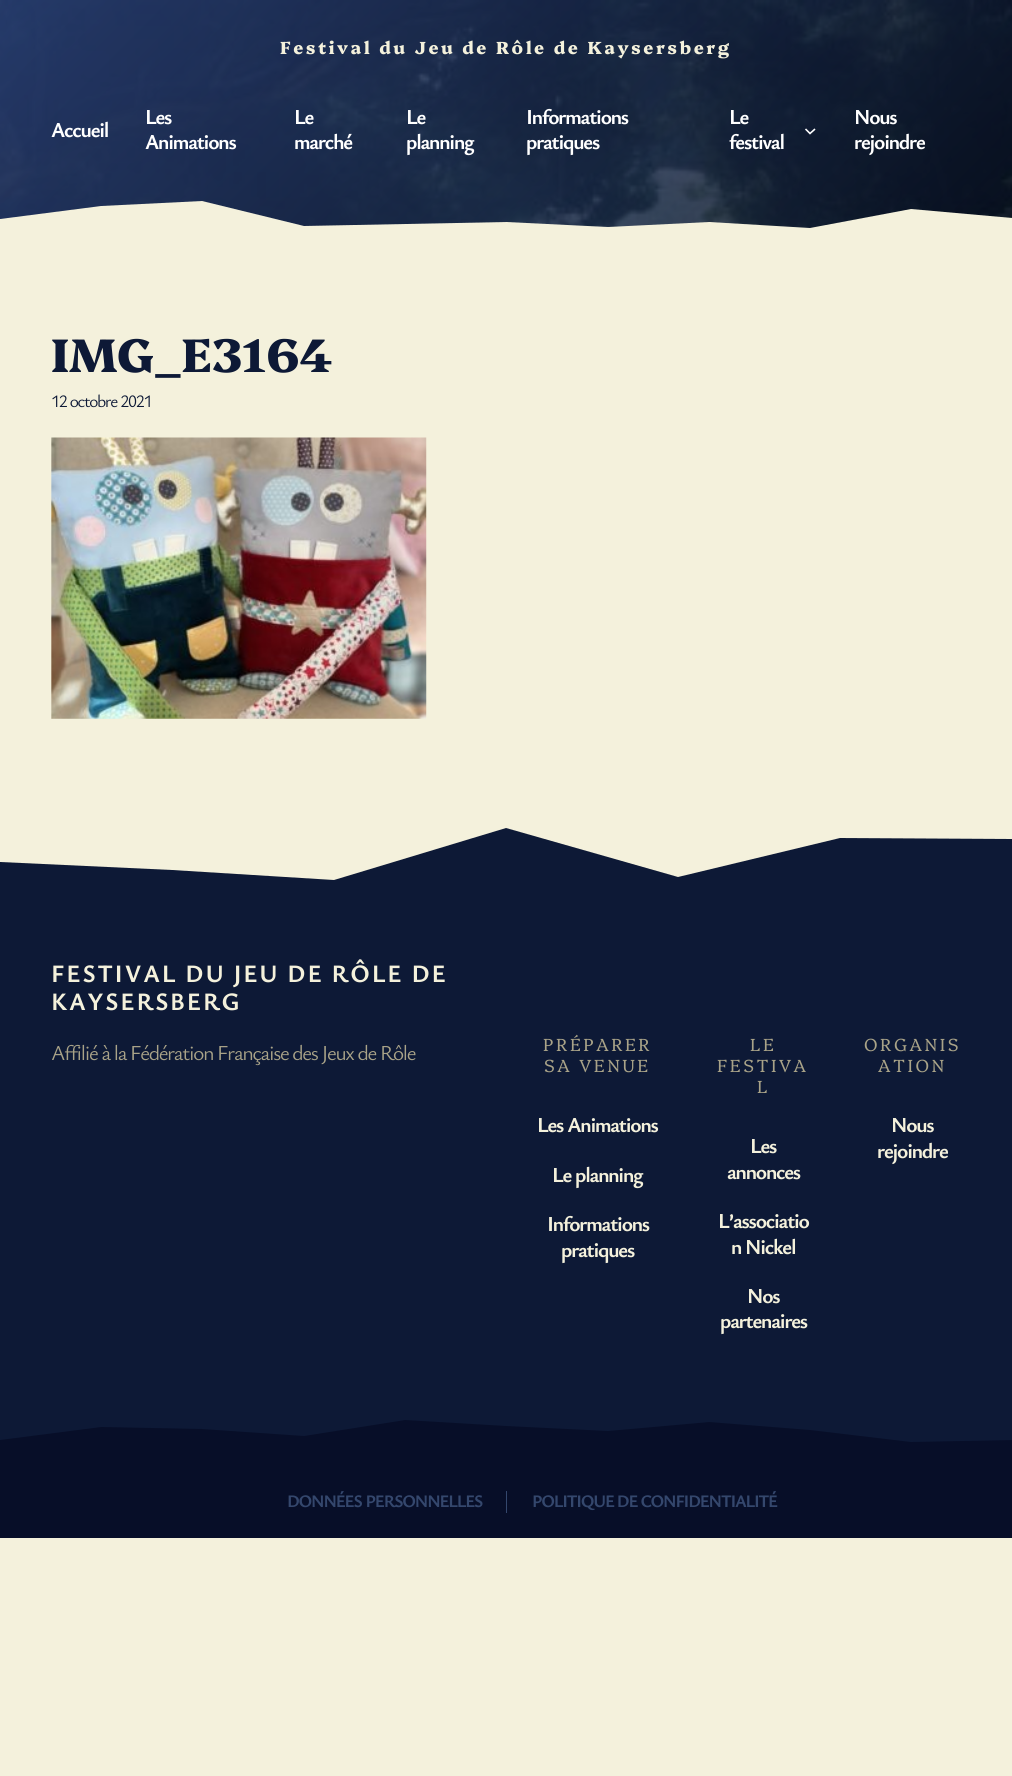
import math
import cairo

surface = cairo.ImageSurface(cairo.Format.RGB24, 1012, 1776)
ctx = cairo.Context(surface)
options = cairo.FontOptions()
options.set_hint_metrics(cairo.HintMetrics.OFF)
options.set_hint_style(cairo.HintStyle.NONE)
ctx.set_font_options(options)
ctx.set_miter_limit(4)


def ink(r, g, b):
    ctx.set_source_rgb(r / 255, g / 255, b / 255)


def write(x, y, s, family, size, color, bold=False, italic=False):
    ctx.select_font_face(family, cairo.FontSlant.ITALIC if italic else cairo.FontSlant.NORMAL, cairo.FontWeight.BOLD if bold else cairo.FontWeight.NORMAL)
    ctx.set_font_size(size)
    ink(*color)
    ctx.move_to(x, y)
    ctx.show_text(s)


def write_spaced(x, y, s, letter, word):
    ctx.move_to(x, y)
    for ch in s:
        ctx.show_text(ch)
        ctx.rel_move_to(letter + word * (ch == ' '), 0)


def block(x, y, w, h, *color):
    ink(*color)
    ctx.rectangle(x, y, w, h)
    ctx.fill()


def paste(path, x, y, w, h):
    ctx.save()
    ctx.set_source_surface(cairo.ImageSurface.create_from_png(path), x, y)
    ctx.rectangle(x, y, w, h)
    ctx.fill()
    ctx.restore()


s1 = dict(family="Platypi ExtraBold", size=47, color=(13, 25, 54))

ink(244, 241, 220)
ctx.paint()
paste("pic1.png", 0, 0, 1012, 228)
ctx.select_font_face("Platypi ExtraBold")
ctx.set_font_size(17.5)
ink(244, 241, 220)
write_spaced(280, 54, "Festival du Jeu de Rôle de Kaysersberg", 2.5, 0)
ctx.select_font_face("Ysabeau Office", cairo.FontSlant.NORMAL, cairo.FontWeight.BOLD)
ctx.set_font_size(21.25)
ink(255, 255, 255)
write_spaced(51, 137, "Accueil", -1.25, 0)
write_spaced(145, 124, "Les", -1.25, 0)
write_spaced(145, 149, "Animations", -1.25, 0)
write_spaced(294, 124, "Le", -1.25, 0)
write_spaced(294, 149, "marché", -1.25, 0)
write_spaced(406, 124, "Le", -1.25, 0)
write_spaced(406, 149, "planning", -1.25, 0)
write_spaced(526, 124, "Informations", -1.25, 0)
write_spaced(526, 149, "pratiques", -1.25, 0)
write_spaced(729, 124, "Le", -1.25, 0)
write_spaced(729, 149, "festival", -1.25, 0)
ctx.new_path()
ctx.move_to(805.5, 129)
ctx.line_to(810, 133.5)
ctx.line_to(815, 129)
ctx.set_line_width(1.6)
ctx.stroke()
write_spaced(854, 124, "Nous", -1.25, 0)
write_spaced(854, 149, "rejoindre", -1.25, 0)
ctx.save()
ctx.rectangle(0, 180, 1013, 63)
ctx.clip()
ink(244, 241, 220)
ctx.new_path()
ctx.move_to(0, 219)
ctx.line_to(101, 206)
ctx.line_to(202, 201)
ctx.line_to(304, 226)
ctx.line_to(405, 224)
ctx.line_to(506, 222)
ctx.line_to(608, 227)
ctx.line_to(709, 222)
ctx.line_to(810, 228)
ctx.line_to(911, 209)
ctx.line_to(1012, 218)
ctx.line_to(1012, 245)
ctx.line_to(0, 245)
ctx.close_path()
ctx.fill()
ctx.restore()
write(51, 372, "IMG_E3164", **s1)
ctx.select_font_face("Ysabeau Office")
ctx.set_font_size(17.5)
write_spaced(51, 407, "12 octobre 2021", -1.25, 0)
paste("pic2.png", 51, 437, 376, 282)
block(0, 828, 1012, 577, 13, 25, 54)
ink(244, 241, 220)
ctx.new_path()
ctx.move_to(0, 862)
ctx.line_to(172, 870)
ctx.line_to(334, 880)
ctx.line_to(506, 828)
ctx.line_to(678, 877)
ctx.line_to(840, 838)
ctx.line_to(1012, 839)
ctx.line_to(1012, 749)
ctx.line_to(0, 749)
ctx.close_path()
ctx.fill()
ctx.select_font_face("Ysabeau Office", cairo.FontSlant.NORMAL, cairo.FontWeight.BOLD)
ctx.set_font_size(24.9)
write_spaced(51, 982, "FESTIVAL DU JEU DE RÔLE DE", 1.8, 0)
write_spaced(51, 1010, "KAYSERSBERG", 1.8, 0)
ctx.select_font_face("Ysabeau Office")
ctx.set_font_size(21.25)
ink(169, 163, 136)
write_spaced(51, 1060, "Affilié à la Fédération Française des Jeux de Rôle", -1.25, 0)
ctx.select_font_face("Platypi Light")
ctx.set_font_size(17.5)
write_spaced(543, 1051, "PRÉPARER", 2.5, 0)
write_spaced(544, 1072, "SA VENUE", 2.5, 0)
ctx.select_font_face("Ysabeau Office", cairo.FontSlant.NORMAL, cairo.FontWeight.BOLD)
ctx.set_font_size(21.25)
ink(244, 241, 220)
write_spaced(537, 1132, "Les Animations", -1.25, 0)
write_spaced(552, 1182, "Le planning", -1.25, 0)
write_spaced(547, 1231, "Informations", -1.25, 0)
write_spaced(561, 1257, "pratiques", -1.25, 0)
ctx.select_font_face("Platypi Light")
ctx.set_font_size(17.5)
ink(169, 163, 136)
write_spaced(750, 1051, "LE", 2.5, 0)
write_spaced(717, 1072, "FESTIVA", 2.5, 0)
write_spaced(757, 1093, "L", 2.5, 0)
ctx.select_font_face("Ysabeau Office", cairo.FontSlant.NORMAL, cairo.FontWeight.BOLD)
ctx.set_font_size(21.25)
ink(244, 241, 220)
write_spaced(750, 1153, "Les", -1.25, 0)
write_spaced(727, 1179, "annonces", -1.25, 0)
write_spaced(718, 1228, "L’associatio", -1.25, 0)
write_spaced(731, 1254, "n Nickel", -1.25, 0)
write_spaced(747, 1303, "Nos", -1.25, 0)
write_spaced(720, 1328, "partenaires", -1.25, 0)
ctx.select_font_face("Platypi Light")
ctx.set_font_size(17.5)
ink(169, 163, 136)
write_spaced(864, 1051, "ORGANIS", 2.5, 0)
write_spaced(878, 1072, "ATION", 2.5, 0)
ctx.select_font_face("Ysabeau Office", cairo.FontSlant.NORMAL, cairo.FontWeight.BOLD)
ctx.set_font_size(21.25)
ink(244, 241, 220)
write_spaced(891, 1132, "Nous", -1.25, 0)
write_spaced(877, 1158, "rejoindre", -1.25, 0)
block(0, 1420, 1012, 118, 7, 14, 40)
ink(13, 25, 54)
ctx.new_path()
ctx.move_to(0, 1440)
ctx.line_to(101, 1427)
ctx.line_to(202, 1429)
ctx.line_to(304, 1436)
ctx.line_to(405, 1420)
ctx.line_to(506, 1426)
ctx.line_to(608, 1431)
ctx.line_to(709, 1422)
ctx.line_to(810, 1430)
ctx.line_to(911, 1442)
ctx.line_to(1012, 1440)
ctx.line_to(1012, 1405)
ctx.line_to(0, 1405)
ctx.close_path()
ctx.fill()
block(506, 1491, 1, 22, 52, 71, 109)
ctx.set_font_size(17.5)
write_spaced(287, 1507, "DONNÉES PERSONNELLES", -1.25, 1)
write_spaced(532, 1507, "POLITIQUE DE CONFIDENTIALITÉ", -1.25, 0)
surface.write_to_png("screenshot.png")
